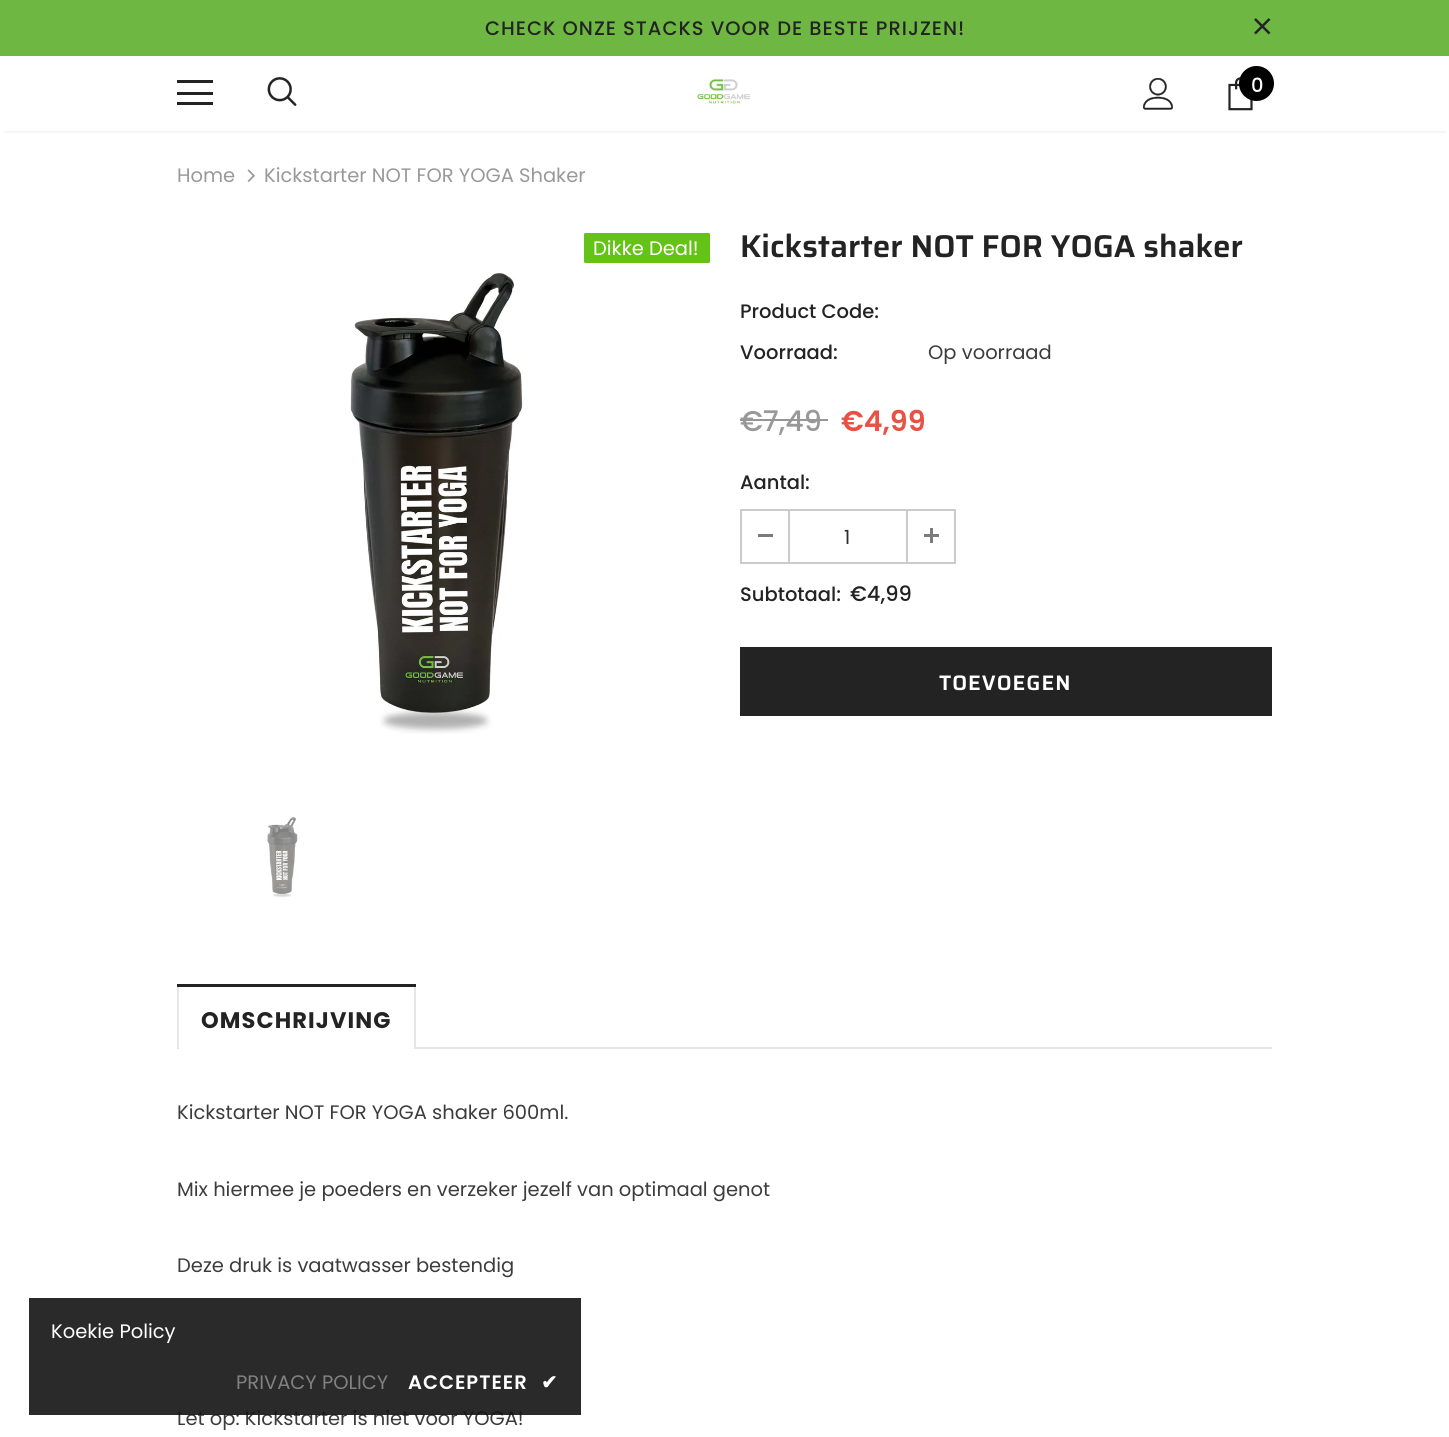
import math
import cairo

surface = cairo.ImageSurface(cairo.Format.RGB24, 1449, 1437)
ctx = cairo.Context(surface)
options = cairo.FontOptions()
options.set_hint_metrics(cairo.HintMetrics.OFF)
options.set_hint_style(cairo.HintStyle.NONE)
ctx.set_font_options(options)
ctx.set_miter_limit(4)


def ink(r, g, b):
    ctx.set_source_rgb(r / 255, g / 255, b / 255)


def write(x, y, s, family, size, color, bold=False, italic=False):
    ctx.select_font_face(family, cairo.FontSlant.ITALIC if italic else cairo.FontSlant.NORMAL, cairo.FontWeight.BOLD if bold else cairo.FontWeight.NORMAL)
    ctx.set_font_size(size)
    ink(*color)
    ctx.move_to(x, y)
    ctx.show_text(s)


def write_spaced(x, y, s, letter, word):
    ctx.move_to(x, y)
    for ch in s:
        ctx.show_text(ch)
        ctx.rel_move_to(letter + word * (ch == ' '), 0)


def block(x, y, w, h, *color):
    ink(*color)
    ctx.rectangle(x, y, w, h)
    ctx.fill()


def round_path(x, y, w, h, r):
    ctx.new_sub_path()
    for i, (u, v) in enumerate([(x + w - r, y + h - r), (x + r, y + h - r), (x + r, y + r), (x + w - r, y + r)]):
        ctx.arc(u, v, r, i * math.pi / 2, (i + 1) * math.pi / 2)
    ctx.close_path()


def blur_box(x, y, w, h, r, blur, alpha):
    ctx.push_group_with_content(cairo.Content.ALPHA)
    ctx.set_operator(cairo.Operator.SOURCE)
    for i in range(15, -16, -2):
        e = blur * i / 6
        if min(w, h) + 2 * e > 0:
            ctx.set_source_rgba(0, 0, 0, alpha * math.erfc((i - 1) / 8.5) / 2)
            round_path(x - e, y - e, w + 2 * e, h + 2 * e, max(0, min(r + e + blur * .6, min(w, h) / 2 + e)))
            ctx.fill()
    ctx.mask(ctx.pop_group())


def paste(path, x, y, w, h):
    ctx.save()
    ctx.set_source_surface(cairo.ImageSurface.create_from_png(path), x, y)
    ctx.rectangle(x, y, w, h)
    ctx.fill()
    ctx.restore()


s1 = dict(family="Poppins Medium", size=19.5, color=(255, 255, 255))
s2 = dict(family="Poppins", size=19.5, color=(153, 153, 153))
s3 = dict(family="Poppins", size=19.5, color=(255, 255, 255))
s4 = dict(family="Saira SemiBold", size=31.5, color=(35, 35, 35))
s5 = dict(family="Poppins Medium", size=19.5, color=(35, 35, 35))
s6 = dict(family="Poppins", size=19.5, color=(60, 60, 60))
s7 = dict(family="Poppins Medium", size=28.5, color=(153, 153, 153))
s8 = dict(family="Poppins SemiBold", size=28.5, color=(233, 81, 68))
s9 = dict(family="Poppins", size=19.5, color=(45, 45, 45))
s10 = dict(family="Poppins Medium", size=21, color=(35, 35, 35))
s11 = dict(family="Poppins", size=19.5, color=(129, 129, 129))

ink(255, 255, 255)
ctx.paint()
block(0, 0, 1449, 56, 110, 183, 67)
ctx.select_font_face("Poppins Medium")
ctx.set_font_size(19.5)
ink(35, 35, 35)
write_spaced(485, 35, "CHECK ONZE STACKS VOOR DE BESTE PRIJZEN!", 1, 0)
paste("pic1.png", 1254, 18, 17, 17)
ink(0, 0, 0)
blur_box(5, 65, 1440, 66, 0, 2, 0.12)
block(2, 62, 1446, 69, 255, 255, 255)
block(177, 80, 36, 3, 35, 35, 35)
block(177, 92, 36, 3, 35, 35, 35)
block(177, 102, 36, 3, 35, 35, 35)
paste("pic2.png", 267, 77, 30, 29)
paste("pic3.png", 697, 79, 53, 25)
paste("pic4.png", 1143, 78, 31, 32)
paste("pic5.png", 1228, 77, 25, 34)
ink(0, 0, 0)
ctx.arc(1256.5, 83.5, 17.5, 0, 2 * math.pi)
ctx.fill()
write(1251, 92, "0", **s1)
write(177, 182, "Home", **s2)
paste("pic6.png", 247, 169, 8, 13)
write(264, 182, "Kickstarter NOT FOR YOGA Shaker", **s2)
ink(101, 195, 24)
round_path(584, 233, 126, 30, 1.5)
ctx.fill()
write(593, 255, "Dikke Deal!", **s3)
paste("pic7.png", 350, 273, 173, 461)
paste("pic8.png", 267, 817, 31, 81)
write(740, 257, "Kickstarter NOT FOR YOGA shaker", **s4)
write(740, 318, "Product Code:", **s5)
write(740, 359, "Voorraad:", **s5)
write(928, 359, "Op voorraad", **s6)
write(740, 431, "€7,49", **s7)
block(740, 419, 88, 2, 150, 150, 150)
write(841, 431, "€4,99", **s8)
write(740, 489, "Aantal:", **s5)
ctx.rectangle(741, 510, 214, 53)
ink(203, 203, 203)
ctx.stroke()
block(788, 510, 2, 53, 203, 203, 203)
block(758, 534, 15, 3, 123, 123, 123)
write(844, 544, "1", **s9)
block(906, 510, 2, 53, 203, 203, 203)
block(924, 534, 15, 3, 123, 123, 123)
block(930, 528, 3, 15, 123, 123, 123)
write(740, 601, "Subtotaal:", **s5)
write(850, 601, "€4,99", **s10)
block(740, 647, 532, 69, 35, 35, 35)
ctx.select_font_face("Saira SemiBold")
ink(255, 255, 255)
write_spaced(939, 690, "TOEVOEGEN", 1, 0)
block(416, 1047, 856, 2, 230, 230, 230)
block(414, 984, 2, 65, 230, 230, 230)
block(177, 984, 2, 65, 230, 230, 230)
block(177, 984, 239, 3, 35, 35, 35)
ctx.select_font_face("Poppins", cairo.FontSlant.NORMAL, cairo.FontWeight.BOLD)
ctx.set_font_size(22.5)
write_spaced(201, 1028, "OMSCHRIJVING", 1.1, 0)
write(177, 1119, "Kickstarter NOT FOR YOGA shaker 600ml.", **s6)
write(177, 1196, "Mix hiermee je poeders en verzeker jezelf van optimaal genot", **s6)
write(177, 1272, "Deze druk is vaatwasser bestendig", **s6)
write(177, 1425, "Let op: Kickstarter is niet voor YOGA!", **s6)
ctx.set_source_rgba(0.078, 0.078, 0.078, 0.9)
ctx.rectangle(29, 1298, 552, 117)
ctx.fill()
write(51, 1338, "Koekie Policy", **s3)
write(236, 1389, "PRIVACY POLICY", **s11)
ctx.select_font_face("Poppins SemiBold")
ink(255, 255, 255)
write_spaced(408, 1389, "ACCEPTEER", 1, 0)
ctx.select_font_face("DejaVu Sans", cairo.FontSlant.NORMAL, cairo.FontWeight.BOLD)
write_spaced(541, 1389, "✔", 1, 0)
surface.write_to_png("screenshot.png")
